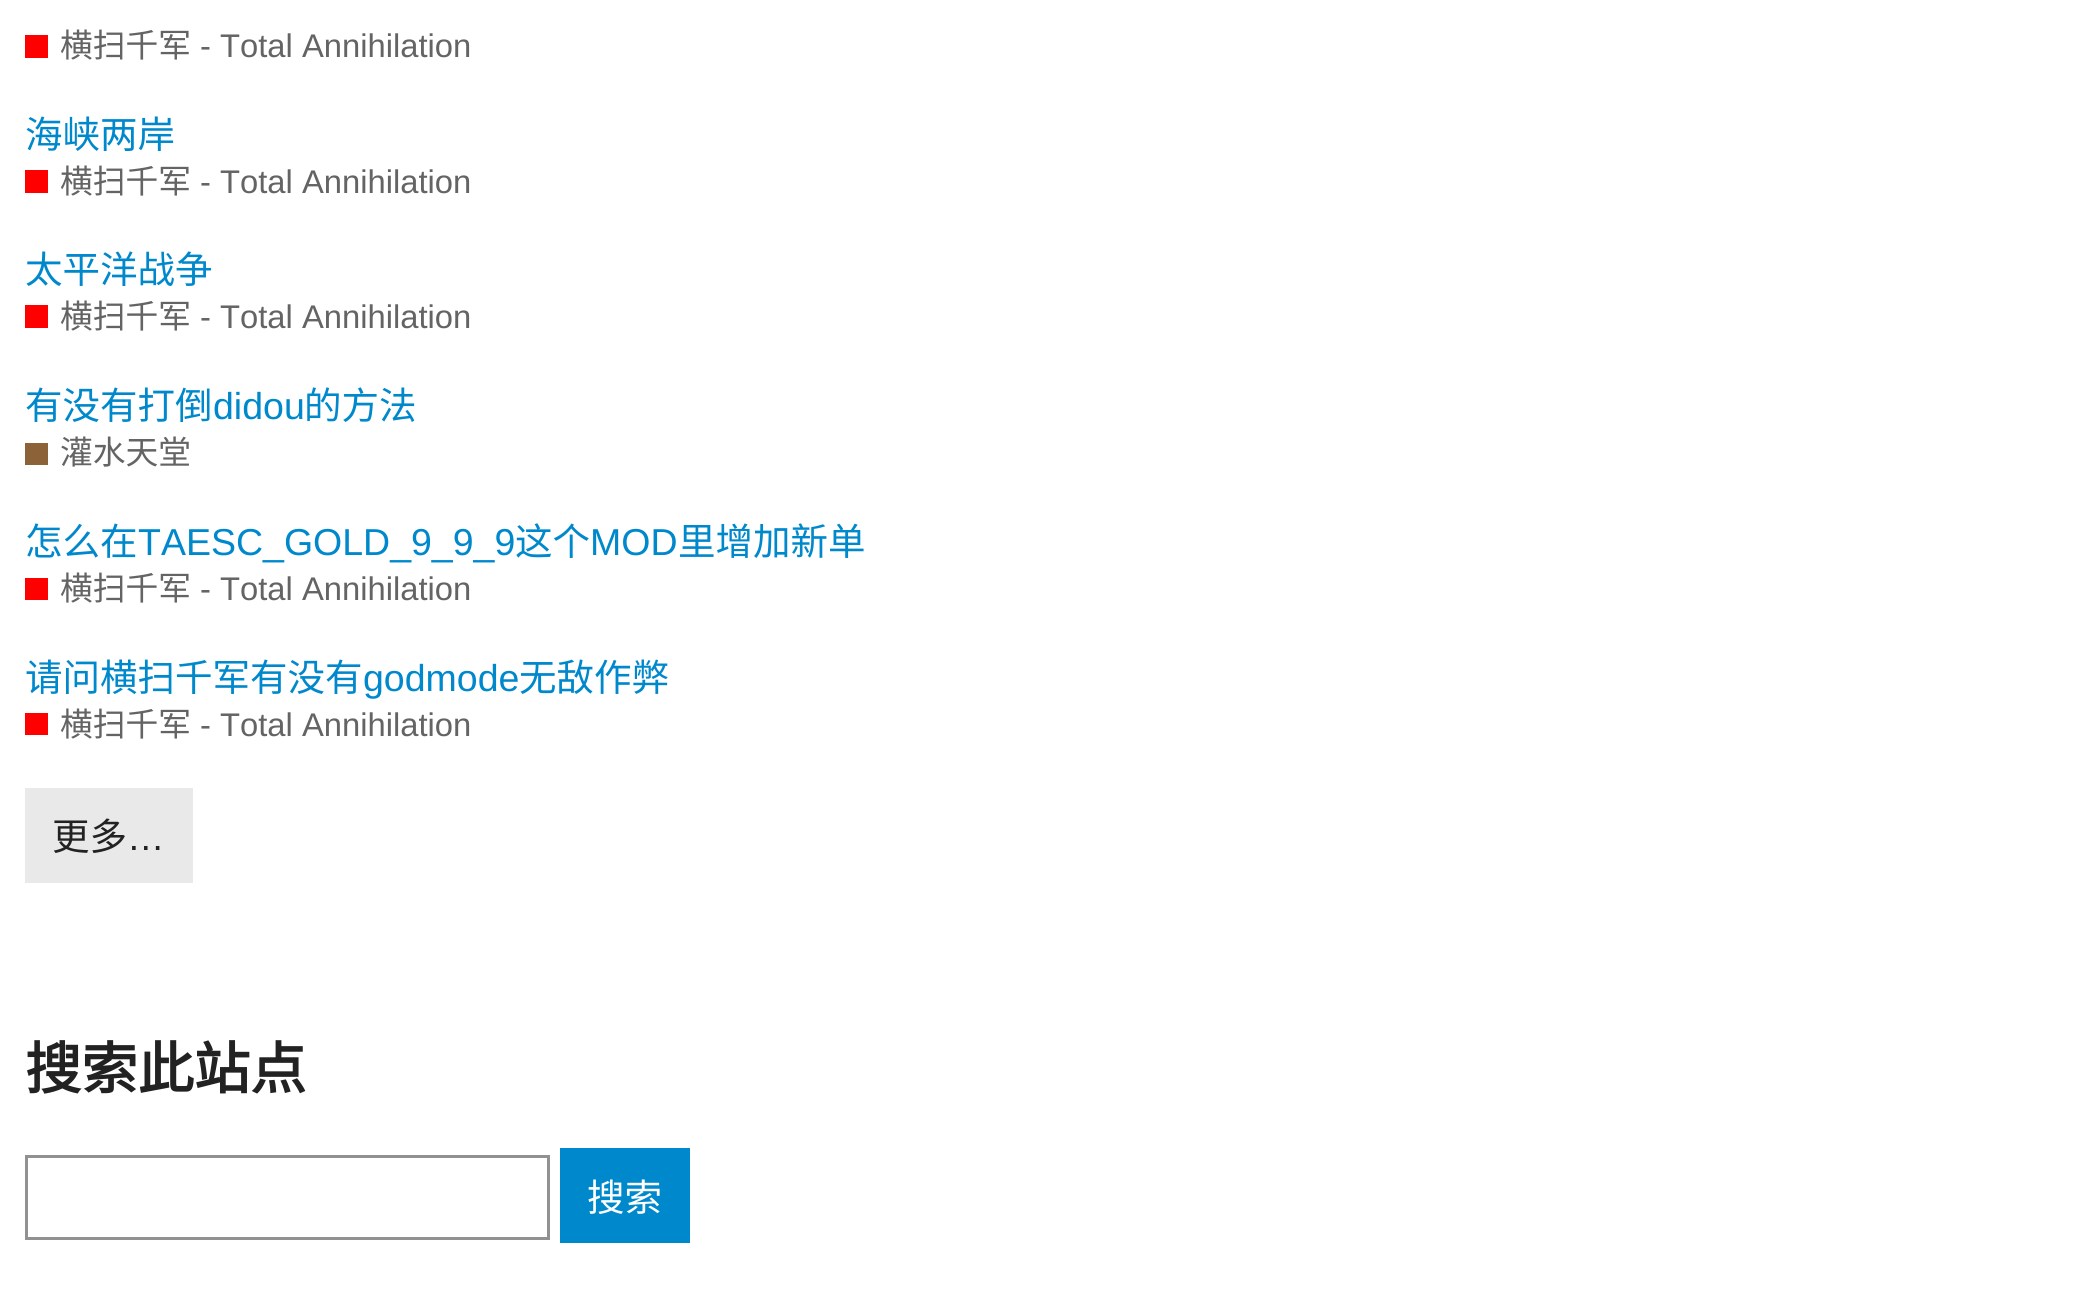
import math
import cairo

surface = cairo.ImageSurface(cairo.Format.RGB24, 2094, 1306)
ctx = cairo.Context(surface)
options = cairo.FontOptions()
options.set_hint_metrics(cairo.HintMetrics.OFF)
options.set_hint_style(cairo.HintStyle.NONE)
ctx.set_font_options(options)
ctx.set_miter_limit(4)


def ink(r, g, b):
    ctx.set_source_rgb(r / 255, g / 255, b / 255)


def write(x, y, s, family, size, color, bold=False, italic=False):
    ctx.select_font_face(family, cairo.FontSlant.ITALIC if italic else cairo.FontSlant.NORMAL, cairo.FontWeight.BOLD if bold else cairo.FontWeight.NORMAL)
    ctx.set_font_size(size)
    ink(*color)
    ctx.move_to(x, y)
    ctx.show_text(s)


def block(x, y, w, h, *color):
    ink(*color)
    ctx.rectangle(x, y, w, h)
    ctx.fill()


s1 = dict(family="Noto Sans CJK SC", size=32.75, color=(100, 100, 100))
s2 = dict(family="Liberation Sans", size=32.75, color=(100, 100, 100))
s3 = dict(family="Noto Sans CJK SC", size=37.5, color=(0, 136, 204))
s4 = dict(family="Liberation Sans", size=37.5, color=(0, 136, 204))
s5 = dict(family="Noto Sans CJK SC", size=37.5, color=(34, 34, 34))
s6 = dict(family="Liberation Sans", size=37.5, color=(34, 34, 34))
s7 = dict(family="Noto Sans CJK SC", size=56.25, color=(34, 34, 34), bold=True)
s8 = dict(family="Noto Sans CJK SC", size=37.5, color=(255, 255, 255))

ink(255, 255, 255)
ctx.paint()
block(25, 35, 23, 23, 255, 0, 0)
write(60, 57, "横扫千军", **s1)
write(200, 57, "- Total Annihilation", **s2)
write(25, 148, "海峡两岸", **s3)
block(25, 170, 23, 23, 255, 0, 0)
write(60, 193, "横扫千军", **s1)
write(200, 193, "- Total Annihilation", **s2)
write(25, 283, "太平洋战争", **s3)
block(25, 305, 23, 23, 255, 0, 0)
write(60, 328, "横扫千军", **s1)
write(200, 328, "- Total Annihilation", **s2)
write(25, 419, "有没有打倒", **s3)
write(213, 419, "didou", **s4)
write(304, 419, "的方法", **s3)
block(25, 443, 23, 22, 140, 98, 56)
write(60, 464, "灌水天堂", **s1)
write(25, 555, "怎么在", **s3)
write(138, 555, "TAESC_GOLD_9_9_9", **s4)
write(515, 555, "这个", **s3)
write(590, 555, "MOD", **s4)
write(678, 555, "里增加新单", **s3)
block(25, 578, 23, 22, 255, 0, 0)
write(60, 600, "横扫千军", **s1)
write(200, 600, "- Total Annihilation", **s2)
write(25, 691, "请问横扫千军有没有", **s3)
write(363, 691, "godmode", **s4)
write(519, 691, "无敌作弊", **s3)
block(25, 713, 23, 22, 255, 0, 0)
write(60, 736, "横扫千军", **s1)
write(200, 736, "- Total Annihilation", **s2)
block(25, 788, 168, 95, 233, 233, 233)
write(52, 850, "更多", **s5)
write(127, 850, "…", **s6)
write(25, 1089, "搜索此站点", **s7)
ctx.rectangle(26.5, 1156.5, 522, 82)
ink(145, 145, 145)
ctx.set_line_width(3)
ctx.stroke()
block(560, 1148, 130, 95, 0, 136, 204)
write(587, 1211, "搜索", **s8)
surface.write_to_png("screenshot.png")
